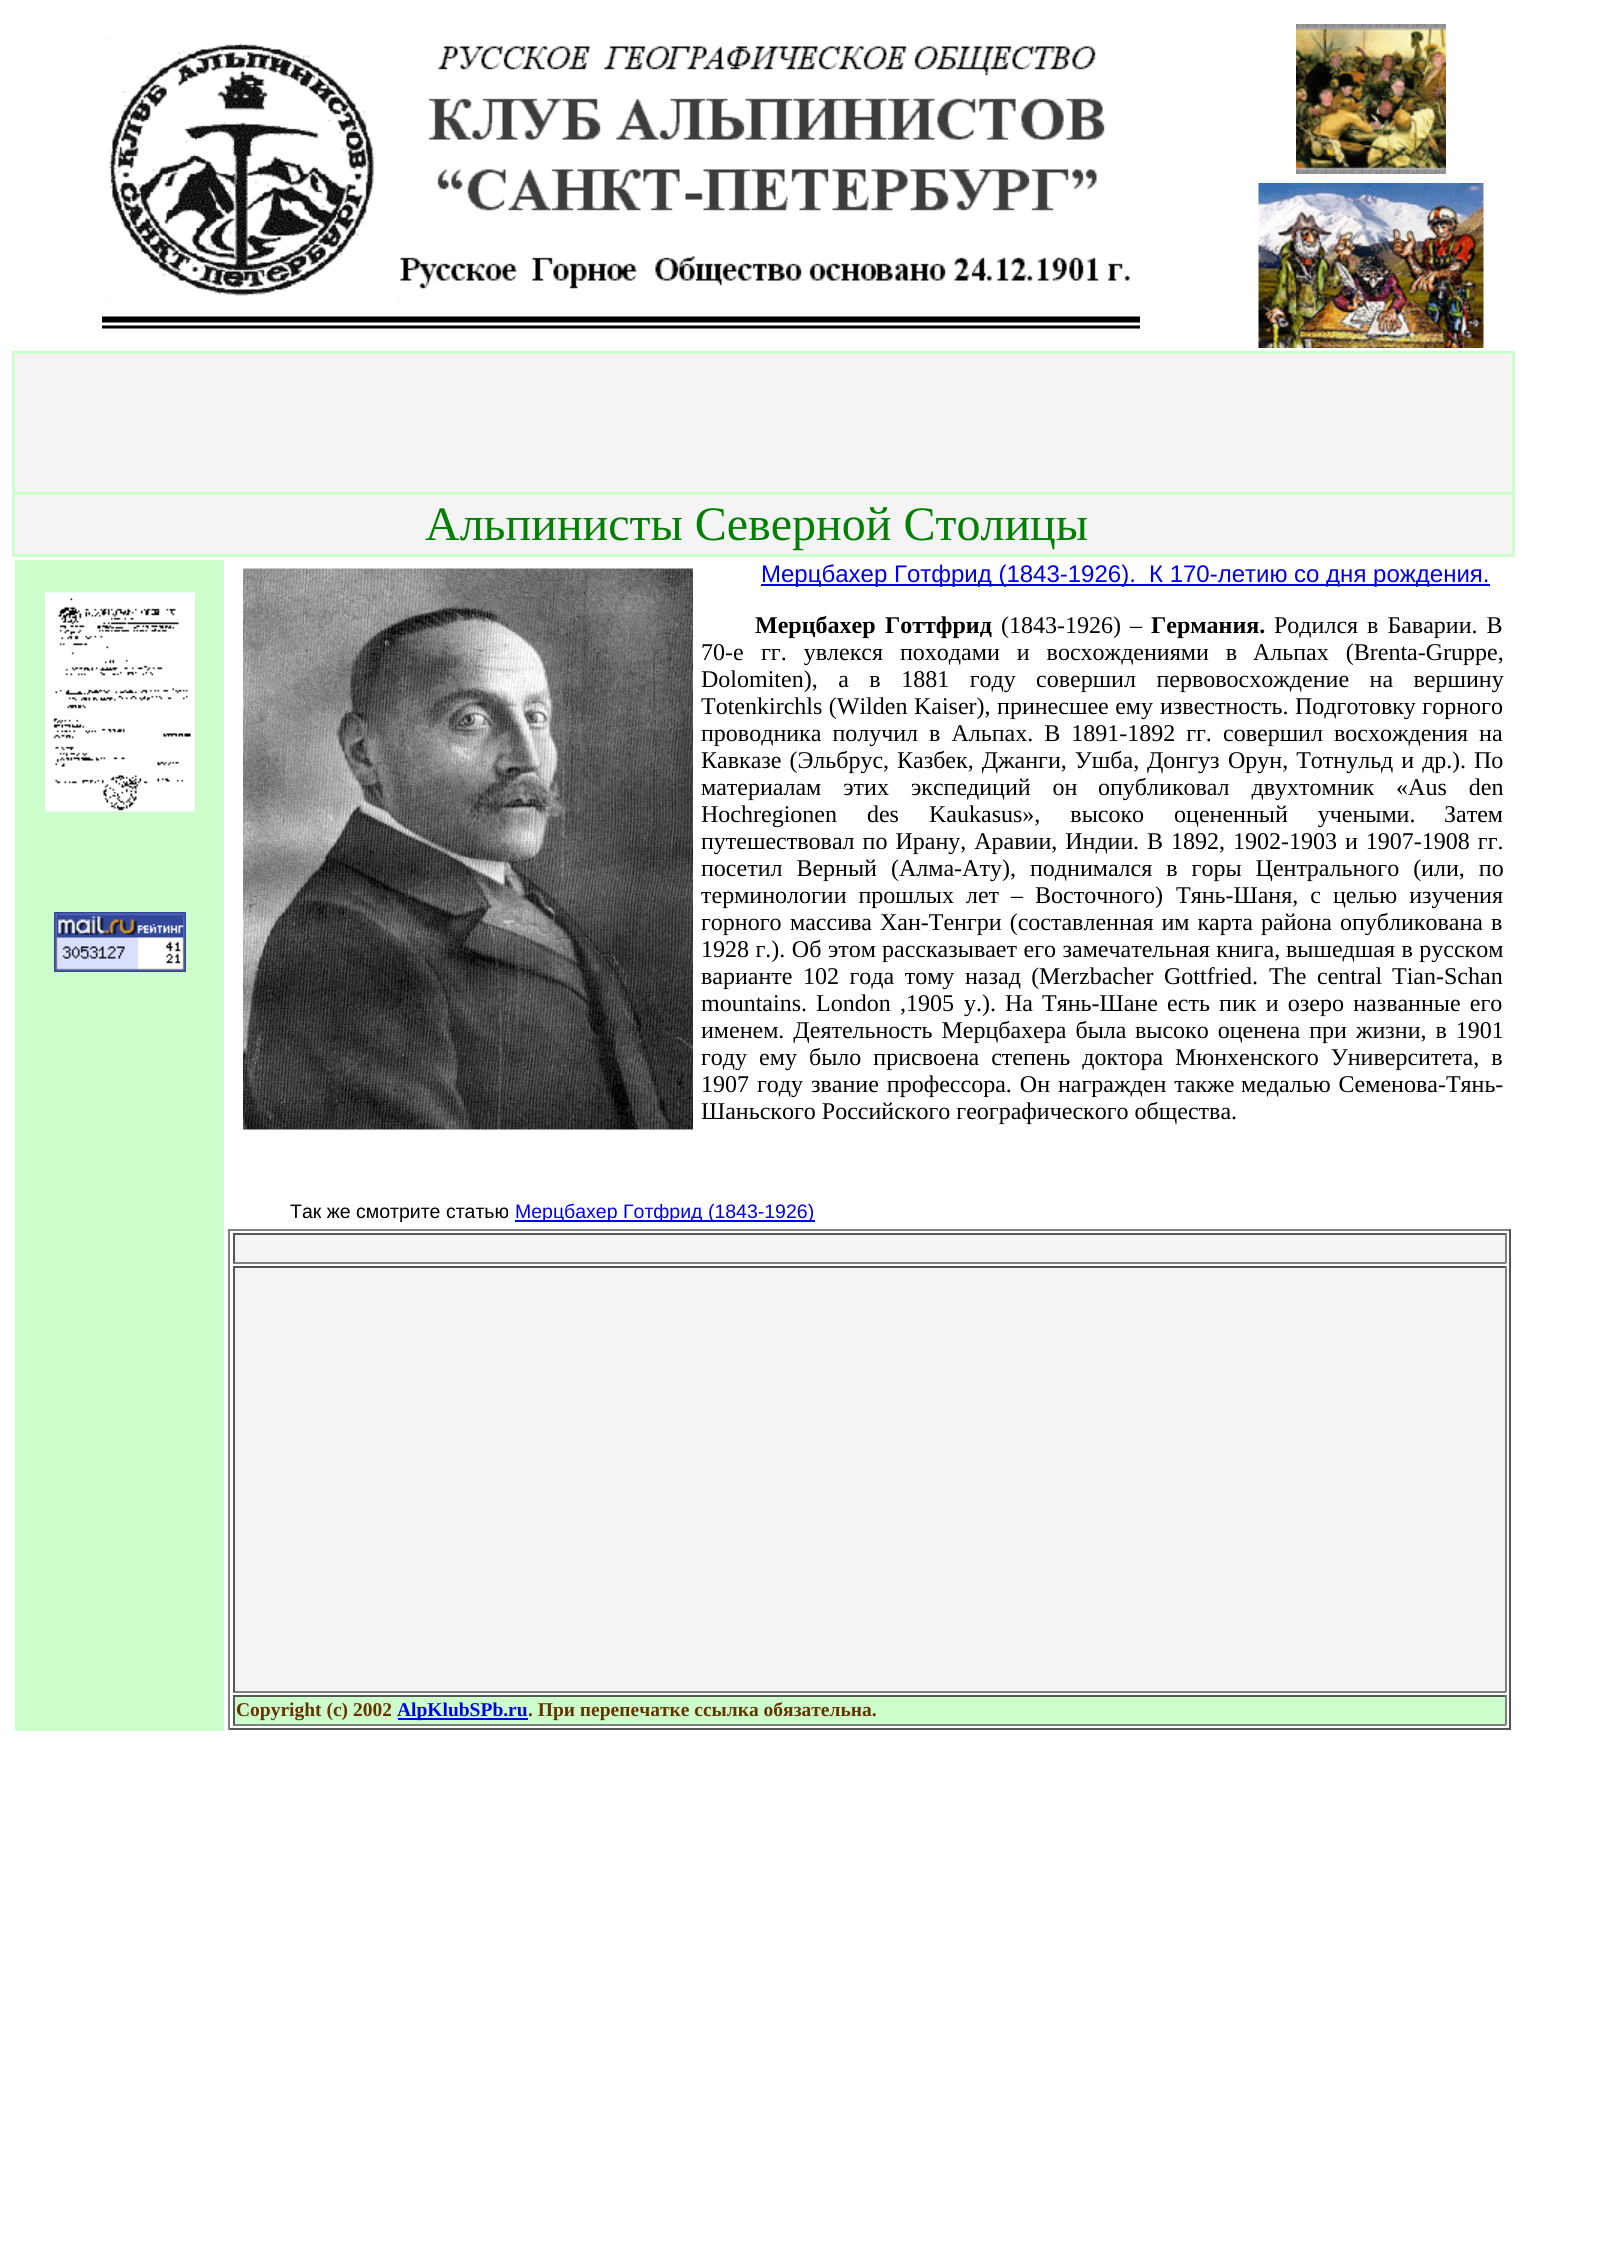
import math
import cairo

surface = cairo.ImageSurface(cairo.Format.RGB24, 1622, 2266)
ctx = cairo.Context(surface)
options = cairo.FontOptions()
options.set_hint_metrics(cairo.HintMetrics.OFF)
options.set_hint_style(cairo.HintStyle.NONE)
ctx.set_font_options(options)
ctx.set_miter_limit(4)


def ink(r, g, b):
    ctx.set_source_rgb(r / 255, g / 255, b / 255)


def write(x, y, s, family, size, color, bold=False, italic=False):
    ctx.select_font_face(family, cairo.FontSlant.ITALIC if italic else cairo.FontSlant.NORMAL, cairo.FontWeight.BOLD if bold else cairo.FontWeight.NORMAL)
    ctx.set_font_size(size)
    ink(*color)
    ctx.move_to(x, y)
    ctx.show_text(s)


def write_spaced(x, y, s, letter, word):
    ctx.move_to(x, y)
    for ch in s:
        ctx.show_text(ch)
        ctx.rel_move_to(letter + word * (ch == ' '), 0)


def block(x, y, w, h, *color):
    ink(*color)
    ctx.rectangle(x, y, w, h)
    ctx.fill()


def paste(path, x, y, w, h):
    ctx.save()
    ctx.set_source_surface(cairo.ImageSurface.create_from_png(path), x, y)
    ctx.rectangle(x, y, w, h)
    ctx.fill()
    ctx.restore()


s1 = dict(family="Liberation Serif", size=48, color=(0, 128, 0))
s2 = dict(family="Liberation Sans", size=24, color=(0, 0, 238))
s3 = dict(family="Liberation Serif", size=24, color=(0, 0, 0), bold=True)
s4 = dict(family="Liberation Serif", size=24, color=(0, 0, 0))
s5 = dict(family="Liberation Sans", size=19.5, color=(0, 0, 0))
s6 = dict(family="Liberation Sans", size=19.5, color=(0, 0, 238))
s7 = dict(family="Liberation Serif", size=19.5, color=(102, 51, 0), bold=True)
s8 = dict(family="Liberation Serif", size=19.5, color=(0, 0, 238), bold=True)

ink(255, 255, 255)
ctx.paint()
paste("pic1.png", 102, 38, 1038, 291)
paste("pic2.png", 1296, 24, 150, 150)
paste("pic3.png", 1258, 183, 226, 165)
block(12, 351, 1503, 206, 204, 255, 204)
block(15, 354, 1497, 138, 244, 244, 244)
block(15, 495, 1497, 59, 244, 244, 244)
write(425, 540, "Альпинисты Северной Столицы", **s1)
block(15, 560, 209, 1171, 204, 255, 204)
paste("pic4.png", 45, 592, 150, 220)
paste("pic5.png", 54, 912, 132, 60)
paste("pic6.png", 243, 568, 450, 562)
block(761, 584, 729, 2, 0, 0, 238)
write(761, 582, "Мерцбахер Готфрид (1843-1926).", **s2)
write(1149, 582, "К 170-летию со дня рождения.", **s2)
write(755, 633, "Мерцбахер", **s3)
write(885, 633, "Готтфрид", **s3)
ctx.select_font_face("Liberation Serif")
write_spaced(1001, 633, "(1843-1926) –", 0, 3)
write(1151, 633, "Германия.", **s3)
ctx.select_font_face("Liberation Serif")
write_spaced(1274, 633, "Родился в Баварии. В", 0, 3)
write(701, 660, "70-e", **s4)
write_spaced(761, 660, "гг. увлекся походами и восхождениями в", 0, 11)
write_spaced(1253, 660, "Альпах (Brenta-Gruppe,", 0, 11)
write_spaced(701, 687, "Dolomiten), а в 1881 году", 0, 14.5)
write_spaced(1036, 687, "совершил первовосхождение на вершину", 0, 14.5)
write_spaced(701, 714, "Totenkirchls (Wilden Kaiser), принесшее ему", 0, 0.5)
write(1160, 714, "известность.", **s4)
write_spaced(1295, 714, "Подготовку горного", 0, 0.5)
write_spaced(701, 741, "проводника получил в Альпах. В 1891-1892 гг.", 0, 5)
write_spaced(1223, 741, "совершил восхождения на", 0, 5)
write_spaced(701, 768, "Кавказе (Эльбрус,", 0, 2)
write_spaced(897, 768, "Казбек, Джанги, Ушба,", 0, 2)
write(1147, 768, "Донгуз", **s4)
write_spaced(1228, 768, "Орун, Тотнульд и др.", 0, 2)
write(1452, 768, ").", **s4)
write(1474, 768, "По", **s4)
write_spaced(701, 795, "материалам этих экспедиций он", 0, 16)
write_spaced(1098, 795, "опубликовал двухтомник «Aus den", 0, 16)
write_spaced(701, 822, "Hochregionen des", 0, 24)
write_spaced(929, 822, "Kaukasus», высоко оцененный учеными.", 0, 24)
write(1444, 822, "Затем", **s4)
write_spaced(701, 849, "путешествовал по Ирану, Аравии, Индии", 0, 2)
write(1133, 849, ".", **s4)
write_spaced(1147, 849, "В 1892, 1902-1903 и 1907-1908 гг.", 0, 2)
write_spaced(701, 876, "посетил Верный (Алма-Ату),", 0, 8)
write_spaced(1030, 876, "поднимался в горы Центрального (или, по", 0, 8)
write_spaced(701, 903, "терминологии прошлых лет – Восточного)", 0, 6)
write_spaced(1176, 903, "Тянь-Шаня, с целью изучения", 0, 6)
write(701, 930, "горного", **s4)
write_spaced(790, 930, "массива Хан-Тенгри (составленная им карта", 0, 2)
write_spaced(1261, 930, "района опубликована в", 0, 2)
write_spaced(701, 957, "1928 г.). Об этом", 0, 0.5)
write_spaced(882, 957, "рассказывает его замечательная книга,", 0, 0.5)
write_spaced(1286, 957, "вышедшая в русском", 0, 0.5)
write_spaced(701, 984, "варианте 102 года тому", 0, 4.5)
write_spaced(965, 984, "назад (", 0, 4.5)
write(1039, 984, "Merzbacher", **s4)
write(1164, 984, "Gottfried.", **s4)
write(1269, 984, "The", **s4)
write(1317, 984, "central", **s4)
write(1392, 984, "Tian-Schan", **s4)
write(701, 1011, "mountains.", **s4)
write(816, 1011, "London", **s4)
write(900, 1011, ",1905", **s4)
write(964, 1011, "y.).", **s4)
write(1005, 1011, "Ha", **s4)
write_spaced(1042, 1011, "Тянь-Шане есть пик и озеро названные его", 0, 3.25)
write_spaced(701, 1038, "именем. Деятельность Мерцбахера была", 0, 3)
write_spaced(1135, 1038, "высоко оценена при жизни, в 1901", 0, 3)
write_spaced(701, 1065, "году ему", 0, 6)
write_spaced(809, 1065, "было присвоена степень доктора", 0, 6)
write_spaced(1175, 1065, "Мюнхенского Университета, в", 0, 6)
write_spaced(701, 1092, "1907 году", 0, 2)
write_spaced(811, 1092, "звание профессора. Он награжден также", 0, 2)
write_spaced(1241, 1092, "медалью Семенова-Тянь-", 0, 2)
write(701, 1119, "Шаньского Российского географического общества.", **s4)
write(290, 1218, "Так же смотрите статью", **s5)
block(515, 1220, 300, 2, 0, 0, 238)
write(515, 1218, "Мерцбахер Готфрид (1843-1926)", **s6)
block(228, 1229, 1283, 2, 128, 128, 128)
block(1509, 1229, 2, 501, 85, 85, 85)
block(228, 1728, 1283, 2, 85, 85, 85)
block(228, 1229, 2, 501, 128, 128, 128)
block(235, 1235, 1270, 27, 244, 244, 244)
block(233, 1233, 1273, 2, 85, 85, 85)
block(1505, 1233, 2, 30, 128, 128, 128)
block(233, 1262, 1273, 2, 128, 128, 128)
block(233, 1233, 2, 30, 85, 85, 85)
block(235, 1268, 1270, 423, 244, 244, 244)
block(233, 1266, 1273, 2, 85, 85, 85)
block(1505, 1266, 2, 426, 128, 128, 128)
block(233, 1691, 1273, 2, 128, 128, 128)
block(233, 1266, 2, 426, 85, 85, 85)
block(235, 1697, 1270, 27, 204, 255, 204)
block(233, 1695, 1273, 2, 85, 85, 85)
block(1505, 1695, 2, 30, 128, 128, 128)
block(233, 1724, 1273, 2, 128, 128, 128)
block(233, 1695, 2, 30, 85, 85, 85)
write(236, 1716, "Copyright (c) 2002", **s7)
block(398, 1718, 130, 2, 0, 0, 238)
write(397, 1716, "AlpKlubSPb.ru", **s8)
write(528, 1716, ". При перепечатке ссылка обязательна.", **s7)
surface.write_to_png("screenshot.png")
